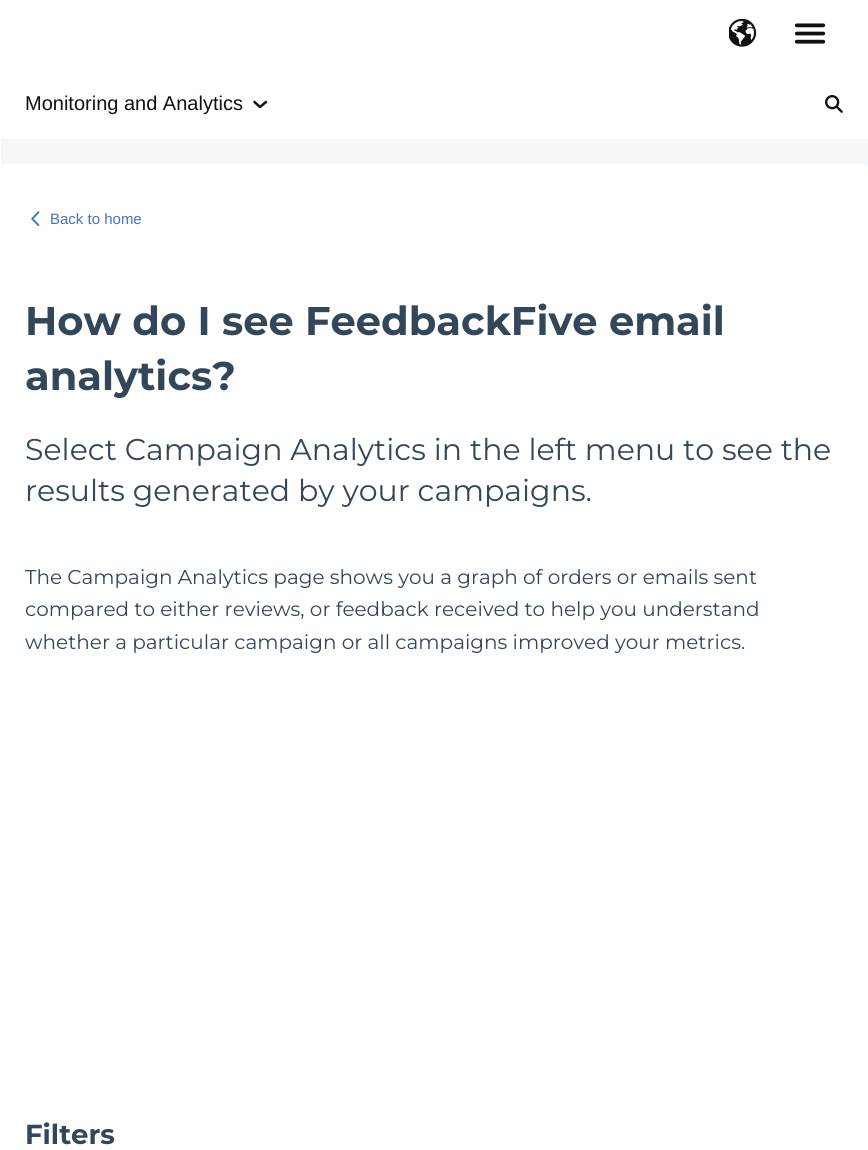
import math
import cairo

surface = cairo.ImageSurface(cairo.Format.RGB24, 868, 1150)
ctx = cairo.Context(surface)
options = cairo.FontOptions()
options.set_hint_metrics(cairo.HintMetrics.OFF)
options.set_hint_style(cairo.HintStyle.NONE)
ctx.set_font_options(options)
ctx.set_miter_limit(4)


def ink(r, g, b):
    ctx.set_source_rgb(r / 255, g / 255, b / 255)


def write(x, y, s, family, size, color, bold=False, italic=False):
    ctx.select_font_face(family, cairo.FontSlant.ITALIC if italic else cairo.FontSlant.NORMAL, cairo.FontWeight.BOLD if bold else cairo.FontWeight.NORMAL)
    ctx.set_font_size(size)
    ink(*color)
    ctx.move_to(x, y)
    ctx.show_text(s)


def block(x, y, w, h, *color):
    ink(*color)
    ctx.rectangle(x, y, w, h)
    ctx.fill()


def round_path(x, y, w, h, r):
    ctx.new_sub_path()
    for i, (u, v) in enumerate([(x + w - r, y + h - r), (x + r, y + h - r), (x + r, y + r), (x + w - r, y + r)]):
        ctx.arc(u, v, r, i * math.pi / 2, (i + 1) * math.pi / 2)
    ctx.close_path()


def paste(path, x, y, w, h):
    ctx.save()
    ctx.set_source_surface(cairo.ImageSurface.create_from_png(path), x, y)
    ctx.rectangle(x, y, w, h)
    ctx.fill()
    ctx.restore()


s1 = dict(family="Liberation Sans", size=20, color=(17, 17, 17))
s2 = dict(family="Liberation Sans", size=15, color=(68, 116, 192))
s3 = dict(family="Montserrat", size=40, color=(51, 71, 91), bold=True)
s4 = dict(family="Montserrat", size=30, color=(51, 71, 91))
s5 = dict(family="Montserrat", size=20, color=(51, 71, 91))
s6 = dict(family="Montserrat", size=27.5, color=(51, 71, 91), bold=True)

ink(245, 248, 250)
ctx.paint()
block(0, 0, 868, 139, 255, 255, 255)
paste("pic1.png", 729, 19, 28, 28)
paste("pic2.png", 795, 23, 31, 21)
round_path(0, 164, 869, 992, 6)
ctx.fill()
block(0, 139, 1, 29, 255, 255, 255)
block(0, 69, 1, 1, 234, 240, 246)
write(25, 110, "Monitoring and Analytics", **s1)
ctx.new_path()
ctx.move_to(266, 102)
ctx.line_to(260, 107)
ctx.line_to(254.5, 102)
ctx.set_line_width(2.5)
ctx.set_line_cap(cairo.LineCap.ROUND)
ctx.set_line_join(cairo.LineJoin.ROUND)
ctx.stroke()
paste("pic3.png", 825, 95, 18, 18)
paste("pic4.png", 31, 211, 9, 15)
write(50, 224, "Back to home", **s2)
write(25, 335, "How do I see FeedbackFive email", **s3)
write(25, 390, "analytics?", **s3)
write(25, 460, "Select Campaign Analytics in the left menu to see the", **s4)
write(25, 501, "results generated by your campaigns.", **s4)
write(25, 584, "The Campaign Analytics page shows you a graph of orders or emails sent", **s5)
write(25, 616, "compared to either reviews, or feedback received to help you understand", **s5)
write(25, 649, "whether a particular campaign or all campaigns improved your metrics.", **s5)
write(25, 1144, "Filters", **s6)
surface.write_to_png("screenshot.png")
